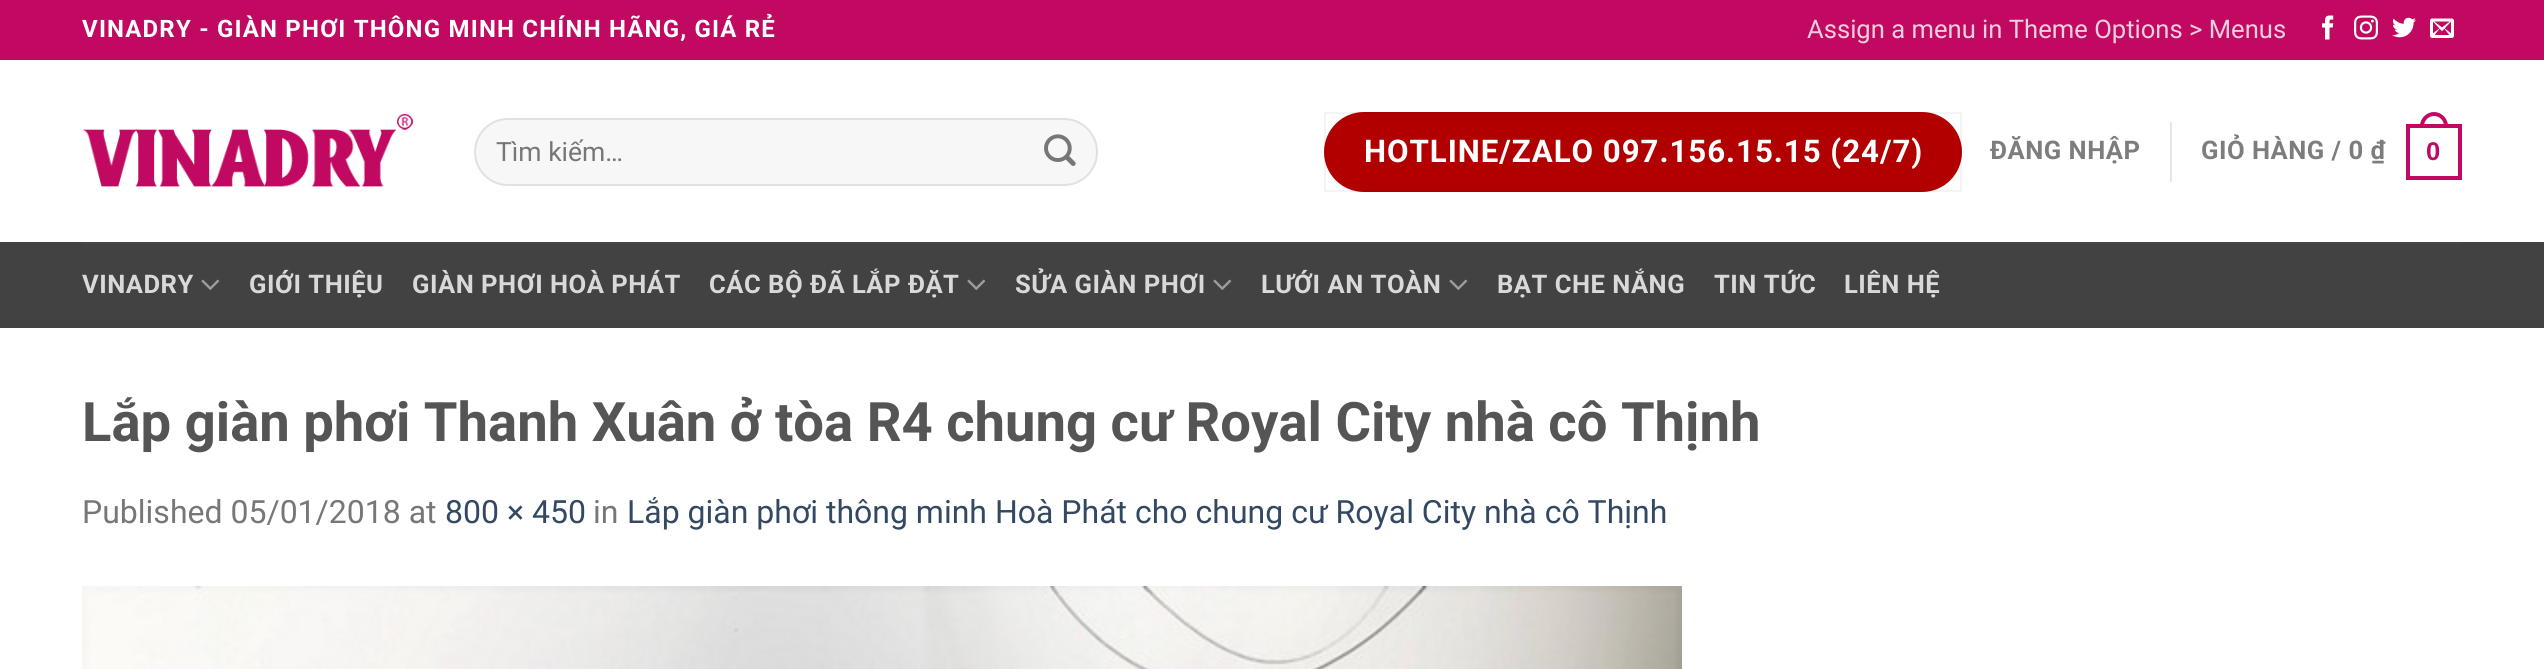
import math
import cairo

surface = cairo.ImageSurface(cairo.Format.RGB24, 2544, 669)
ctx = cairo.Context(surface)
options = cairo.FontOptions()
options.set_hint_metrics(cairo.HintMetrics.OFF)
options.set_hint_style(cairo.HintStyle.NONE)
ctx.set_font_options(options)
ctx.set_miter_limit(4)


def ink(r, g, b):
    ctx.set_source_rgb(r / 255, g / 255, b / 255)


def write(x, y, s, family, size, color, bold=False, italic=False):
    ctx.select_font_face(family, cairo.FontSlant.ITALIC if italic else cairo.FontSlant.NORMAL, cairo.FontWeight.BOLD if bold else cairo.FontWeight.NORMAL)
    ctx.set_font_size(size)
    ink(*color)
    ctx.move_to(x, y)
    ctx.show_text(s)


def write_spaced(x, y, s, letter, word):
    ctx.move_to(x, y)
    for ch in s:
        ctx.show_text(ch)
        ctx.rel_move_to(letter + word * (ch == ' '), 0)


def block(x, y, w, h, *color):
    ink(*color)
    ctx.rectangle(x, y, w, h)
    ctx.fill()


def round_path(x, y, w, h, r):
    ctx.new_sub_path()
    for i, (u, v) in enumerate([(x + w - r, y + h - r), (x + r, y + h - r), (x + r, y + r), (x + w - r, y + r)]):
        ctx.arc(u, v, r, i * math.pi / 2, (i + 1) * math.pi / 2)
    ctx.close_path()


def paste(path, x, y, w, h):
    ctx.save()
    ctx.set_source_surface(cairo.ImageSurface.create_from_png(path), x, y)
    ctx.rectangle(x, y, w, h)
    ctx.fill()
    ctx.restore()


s1 = dict(family="Roboto", size=25.6, color=(243, 206, 223))
s2 = dict(family="Roboto", size=26.5, color=(119, 119, 119))
s3 = dict(family="Roboto", size=54.4, color=(85, 85, 85), bold=True)
s4 = dict(family="Roboto", size=32, color=(119, 119, 119))
s5 = dict(family="Roboto", size=32, color=(51, 72, 98))

ink(255, 255, 255)
ctx.paint()
block(0, 0, 2544, 60, 193, 9, 97)
ctx.select_font_face("Roboto", cairo.FontSlant.NORMAL, cairo.FontWeight.BOLD)
ctx.set_font_size(24)
ink(255, 255, 255)
write_spaced(82, 37, "VINADRY - GIÀN PHƠI THÔNG MINH CHÍNH HÃNG, GIÁ RẺ", 1.2, 0)
write(1807, 38, "Assign a menu in Theme Options > Menus", **s1)
paste("pic1.png", 2322, 15, 12, 25)
paste("pic2.png", 2354, 15, 24, 25)
paste("pic3.png", 2392, 17, 24, 21)
paste("pic4.png", 2430, 18, 24, 20)
paste("pic5.png", 83, 113, 331, 74)
ink(247, 247, 247)
round_path(474, 118, 624, 68, 34)
ctx.fill()
round_path(475, 119, 622, 66, 33)
ctx.set_source_rgba(0, 0, 0, 0.09)
ctx.stroke()
write(496, 161, "Tìm kiếm…", **s2)
paste("pic6.png", 1044, 134, 32, 32)
ink(178, 0, 0)
round_path(1324, 112, 638, 80, 40)
ctx.fill()
ctx.rectangle(1325, 113, 636, 78)
ctx.set_source_rgba(0, 0, 0, 0.05)
ctx.stroke()
ctx.select_font_face("Roboto", cairo.FontSlant.NORMAL, cairo.FontWeight.BOLD)
ctx.set_font_size(31.25)
ink(255, 255, 255)
write_spaced(1364, 162, "HOTLINE/ZALO 097.156.15.15 (24/7)", 0.95, 0)
ctx.set_font_size(25.6)
ink(125, 125, 125)
write_spaced(1990, 159, "ĐĂNG NHẬP", 0.5, 0)
block(2170, 122, 2, 60, 230, 230, 230)
ink(125, 125, 125)
write_spaced(2201, 159, "GIỎ HÀNG / 0 ₫", 0.5, 0)
ctx.rectangle(2408, 126, 52, 52)
ink(193, 9, 97)
ctx.set_line_width(4)
ctx.stroke()
ctx.set_fill_rule(cairo.FillRule.EVEN_ODD)
ctx.new_path()
ctx.move_to(2434, 112)
ctx.curve_to(2441.5, 112, 2448, 118.5, 2448, 126)
ctx.line_to(2448, 128)
ctx.line_to(2420, 128)
ctx.line_to(2420, 126)
ctx.curve_to(2420, 118.5, 2426.5, 112, 2434, 112)
ctx.close_path()
ctx.move_to(2434, 116)
ctx.curve_to(2439.5, 116, 2444, 120.5, 2444, 126)
ctx.line_to(2444, 128)
ctx.line_to(2424, 128)
ctx.line_to(2424, 126)
ctx.curve_to(2424, 120.5, 2428.5, 116, 2434, 116)
ctx.close_path()
ctx.fill()
ctx.select_font_face("Liberation Sans", cairo.FontSlant.NORMAL, cairo.FontWeight.BOLD)
write_spaced(2426, 160, "0", 0.5, 0)
block(0, 242, 2544, 86, 66, 66, 66)
block(82, 242, 2380, 2, 71, 71, 71)
ctx.select_font_face("Roboto", cairo.FontSlant.NORMAL, cairo.FontWeight.BOLD)
ink(217, 217, 217)
write_spaced(82, 293, "VINADRY", 0.5, 0)
paste("pic7.png", 201, 279, 19, 11)
write_spaced(249, 293, "GIỚI THIỆU", 0.5, 0)
write_spaced(412, 293, "GIÀN PHƠI HOÀ PHÁT", 0.5, 0)
write_spaced(709, 293, "CÁC BỘ ĐÃ LẮP ĐẶT", 0.5, 0)
paste("pic7.png", 967, 279, 19, 11)
write_spaced(1015, 293, "SỬA GIÀN PHƠI", 0.5, 0)
paste("pic7.png", 1213, 279, 19, 11)
write_spaced(1261, 293, "LƯỚI AN TOÀN", 0.5, 0)
paste("pic7.png", 1449, 279, 19, 11)
write_spaced(1497, 293, "BẠT CHE NẮNG", 0.5, 0)
write_spaced(1714, 293, "TIN TỨC", 0.5, 0)
write_spaced(1844, 293, "LIÊN HỆ", 0.5, 0)
write(82, 441, "Lắp giàn phơi Thanh Xuân ở tòa R4 chung cư Royal City nhà cô Thịnh", **s3)
write(82, 523, "Published 05/01/2018 at", **s4)
write(445, 523, "800 × 450", **s5)
write(593, 523, "in", **s4)
write(627, 523, "Lắp giàn phơi thông minh Hoà Phát cho chung cư Royal City nhà cô Thịnh", **s5)
paste("pic8.png", 82, 586, 1600, 83)
surface.write_to_png("screenshot.png")
